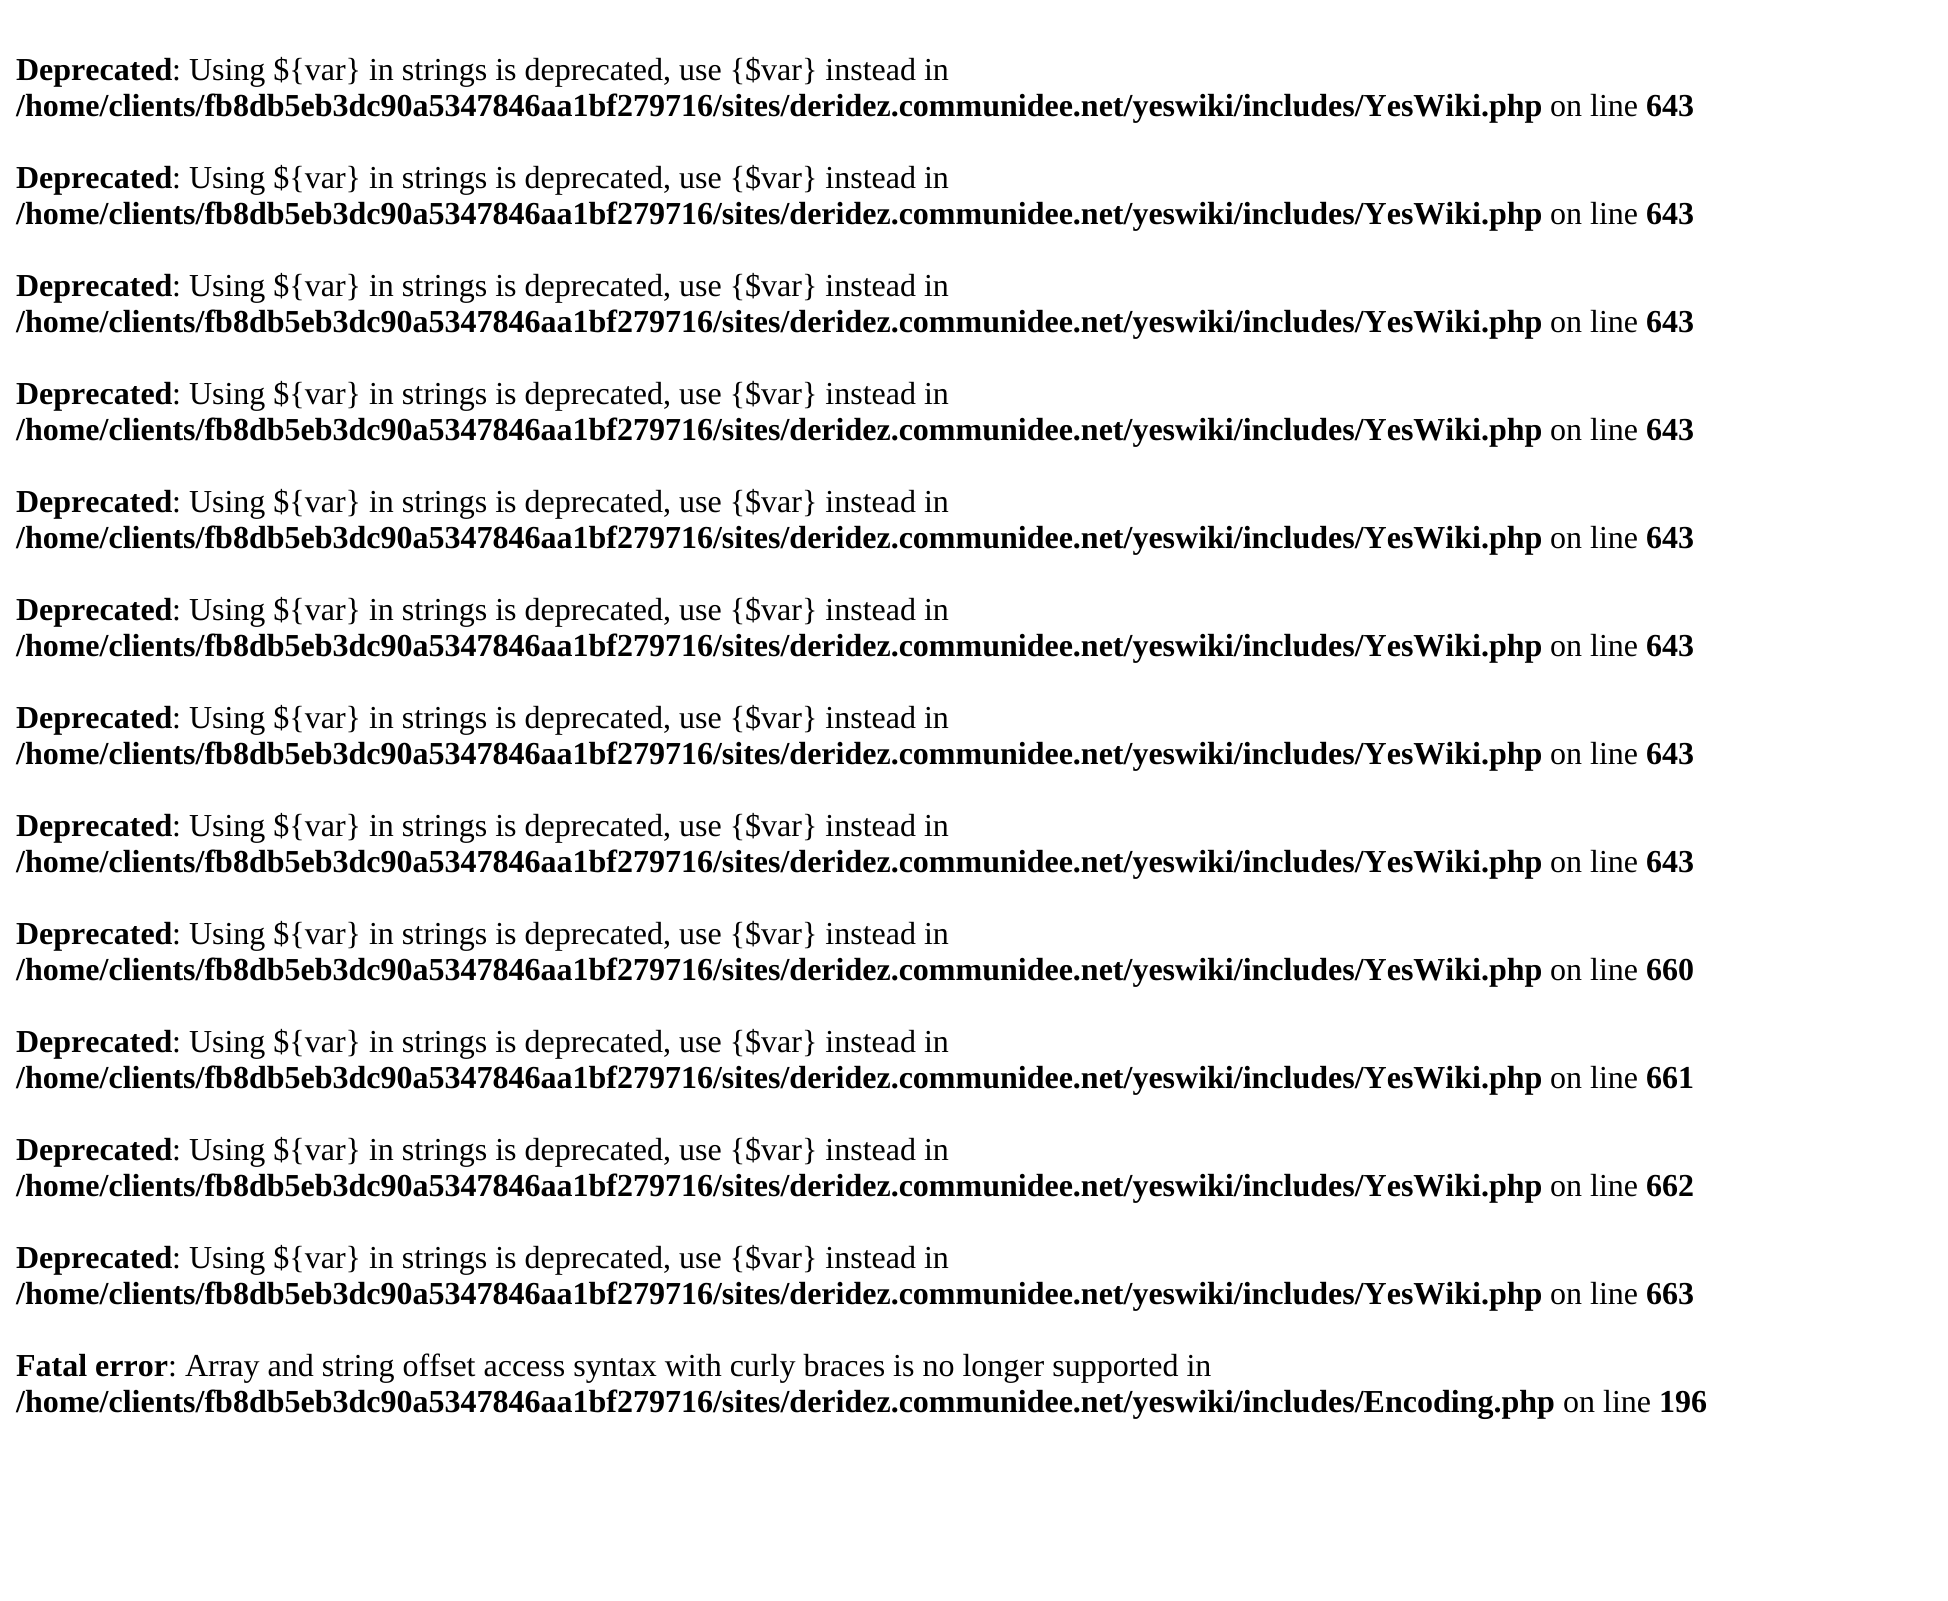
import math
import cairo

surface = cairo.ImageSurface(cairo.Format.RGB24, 1948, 1601)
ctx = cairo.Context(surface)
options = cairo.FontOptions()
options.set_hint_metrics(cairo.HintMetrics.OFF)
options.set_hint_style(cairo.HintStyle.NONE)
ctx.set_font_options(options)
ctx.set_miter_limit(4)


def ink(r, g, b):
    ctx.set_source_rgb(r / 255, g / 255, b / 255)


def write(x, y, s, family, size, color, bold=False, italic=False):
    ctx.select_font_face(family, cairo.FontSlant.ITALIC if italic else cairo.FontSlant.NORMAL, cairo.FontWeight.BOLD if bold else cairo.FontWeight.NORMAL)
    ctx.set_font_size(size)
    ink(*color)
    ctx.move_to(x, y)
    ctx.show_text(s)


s1 = dict(family="Liberation Serif", size=32, color=(0, 0, 0), bold=True)
s2 = dict(family="Liberation Serif", size=32, color=(0, 0, 0))

ink(255, 255, 255)
ctx.paint()
write(16, 80, "Deprecated", **s1)
write(172, 80, ": Using ${var} in strings is deprecated, use {$var} instead in", **s2)
write(16, 116, "/home/clients/fb8db5eb3dc90a5347846aa1bf279716/sites/deridez.communidee.net/yeswiki/includes/YesWiki.php", **s1)
write(1550, 116, "on line", **s2)
write(1646, 116, "643", **s1)
write(16, 188, "Deprecated", **s1)
write(172, 188, ": Using ${var} in strings is deprecated, use {$var} instead in", **s2)
write(16, 224, "/home/clients/fb8db5eb3dc90a5347846aa1bf279716/sites/deridez.communidee.net/yeswiki/includes/YesWiki.php", **s1)
write(1550, 224, "on line", **s2)
write(1646, 224, "643", **s1)
write(16, 296, "Deprecated", **s1)
write(172, 296, ": Using ${var} in strings is deprecated, use {$var} instead in", **s2)
write(16, 332, "/home/clients/fb8db5eb3dc90a5347846aa1bf279716/sites/deridez.communidee.net/yeswiki/includes/YesWiki.php", **s1)
write(1550, 332, "on line", **s2)
write(1646, 332, "643", **s1)
write(16, 404, "Deprecated", **s1)
write(172, 404, ": Using ${var} in strings is deprecated, use {$var} instead in", **s2)
write(16, 440, "/home/clients/fb8db5eb3dc90a5347846aa1bf279716/sites/deridez.communidee.net/yeswiki/includes/YesWiki.php", **s1)
write(1550, 440, "on line", **s2)
write(1646, 440, "643", **s1)
write(16, 512, "Deprecated", **s1)
write(172, 512, ": Using ${var} in strings is deprecated, use {$var} instead in", **s2)
write(16, 548, "/home/clients/fb8db5eb3dc90a5347846aa1bf279716/sites/deridez.communidee.net/yeswiki/includes/YesWiki.php", **s1)
write(1550, 548, "on line", **s2)
write(1646, 548, "643", **s1)
write(16, 620, "Deprecated", **s1)
write(172, 620, ": Using ${var} in strings is deprecated, use {$var} instead in", **s2)
write(16, 656, "/home/clients/fb8db5eb3dc90a5347846aa1bf279716/sites/deridez.communidee.net/yeswiki/includes/YesWiki.php", **s1)
write(1550, 656, "on line", **s2)
write(1646, 656, "643", **s1)
write(16, 728, "Deprecated", **s1)
write(172, 728, ": Using ${var} in strings is deprecated, use {$var} instead in", **s2)
write(16, 764, "/home/clients/fb8db5eb3dc90a5347846aa1bf279716/sites/deridez.communidee.net/yeswiki/includes/YesWiki.php", **s1)
write(1550, 764, "on line", **s2)
write(1646, 764, "643", **s1)
write(16, 836, "Deprecated", **s1)
write(172, 836, ": Using ${var} in strings is deprecated, use {$var} instead in", **s2)
write(16, 872, "/home/clients/fb8db5eb3dc90a5347846aa1bf279716/sites/deridez.communidee.net/yeswiki/includes/YesWiki.php", **s1)
write(1550, 872, "on line", **s2)
write(1646, 872, "643", **s1)
write(16, 944, "Deprecated", **s1)
write(172, 944, ": Using ${var} in strings is deprecated, use {$var} instead in", **s2)
write(16, 980, "/home/clients/fb8db5eb3dc90a5347846aa1bf279716/sites/deridez.communidee.net/yeswiki/includes/YesWiki.php", **s1)
write(1550, 980, "on line", **s2)
write(1646, 980, "660", **s1)
write(16, 1052, "Deprecated", **s1)
write(172, 1052, ": Using ${var} in strings is deprecated, use {$var} instead in", **s2)
write(16, 1088, "/home/clients/fb8db5eb3dc90a5347846aa1bf279716/sites/deridez.communidee.net/yeswiki/includes/YesWiki.php", **s1)
write(1550, 1088, "on line", **s2)
write(1646, 1088, "661", **s1)
write(16, 1160, "Deprecated", **s1)
write(172, 1160, ": Using ${var} in strings is deprecated, use {$var} instead in", **s2)
write(16, 1196, "/home/clients/fb8db5eb3dc90a5347846aa1bf279716/sites/deridez.communidee.net/yeswiki/includes/YesWiki.php", **s1)
write(1550, 1196, "on line", **s2)
write(1646, 1196, "662", **s1)
write(16, 1268, "Deprecated", **s1)
write(172, 1268, ": Using ${var} in strings is deprecated, use {$var} instead in", **s2)
write(16, 1304, "/home/clients/fb8db5eb3dc90a5347846aa1bf279716/sites/deridez.communidee.net/yeswiki/includes/YesWiki.php", **s1)
write(1550, 1304, "on line", **s2)
write(1646, 1304, "663", **s1)
write(16, 1376, "Fatal error", **s1)
write(168, 1376, ": Array and string offset access syntax with curly braces is no longer supported in", **s2)
write(16, 1412, "/home/clients/fb8db5eb3dc90a5347846aa1bf279716/sites/deridez.communidee.net/yeswiki/includes/Encoding.php", **s1)
write(1563, 1412, "on line", **s2)
write(1659, 1412, "196", **s1)
surface.write_to_png("screenshot.png")
